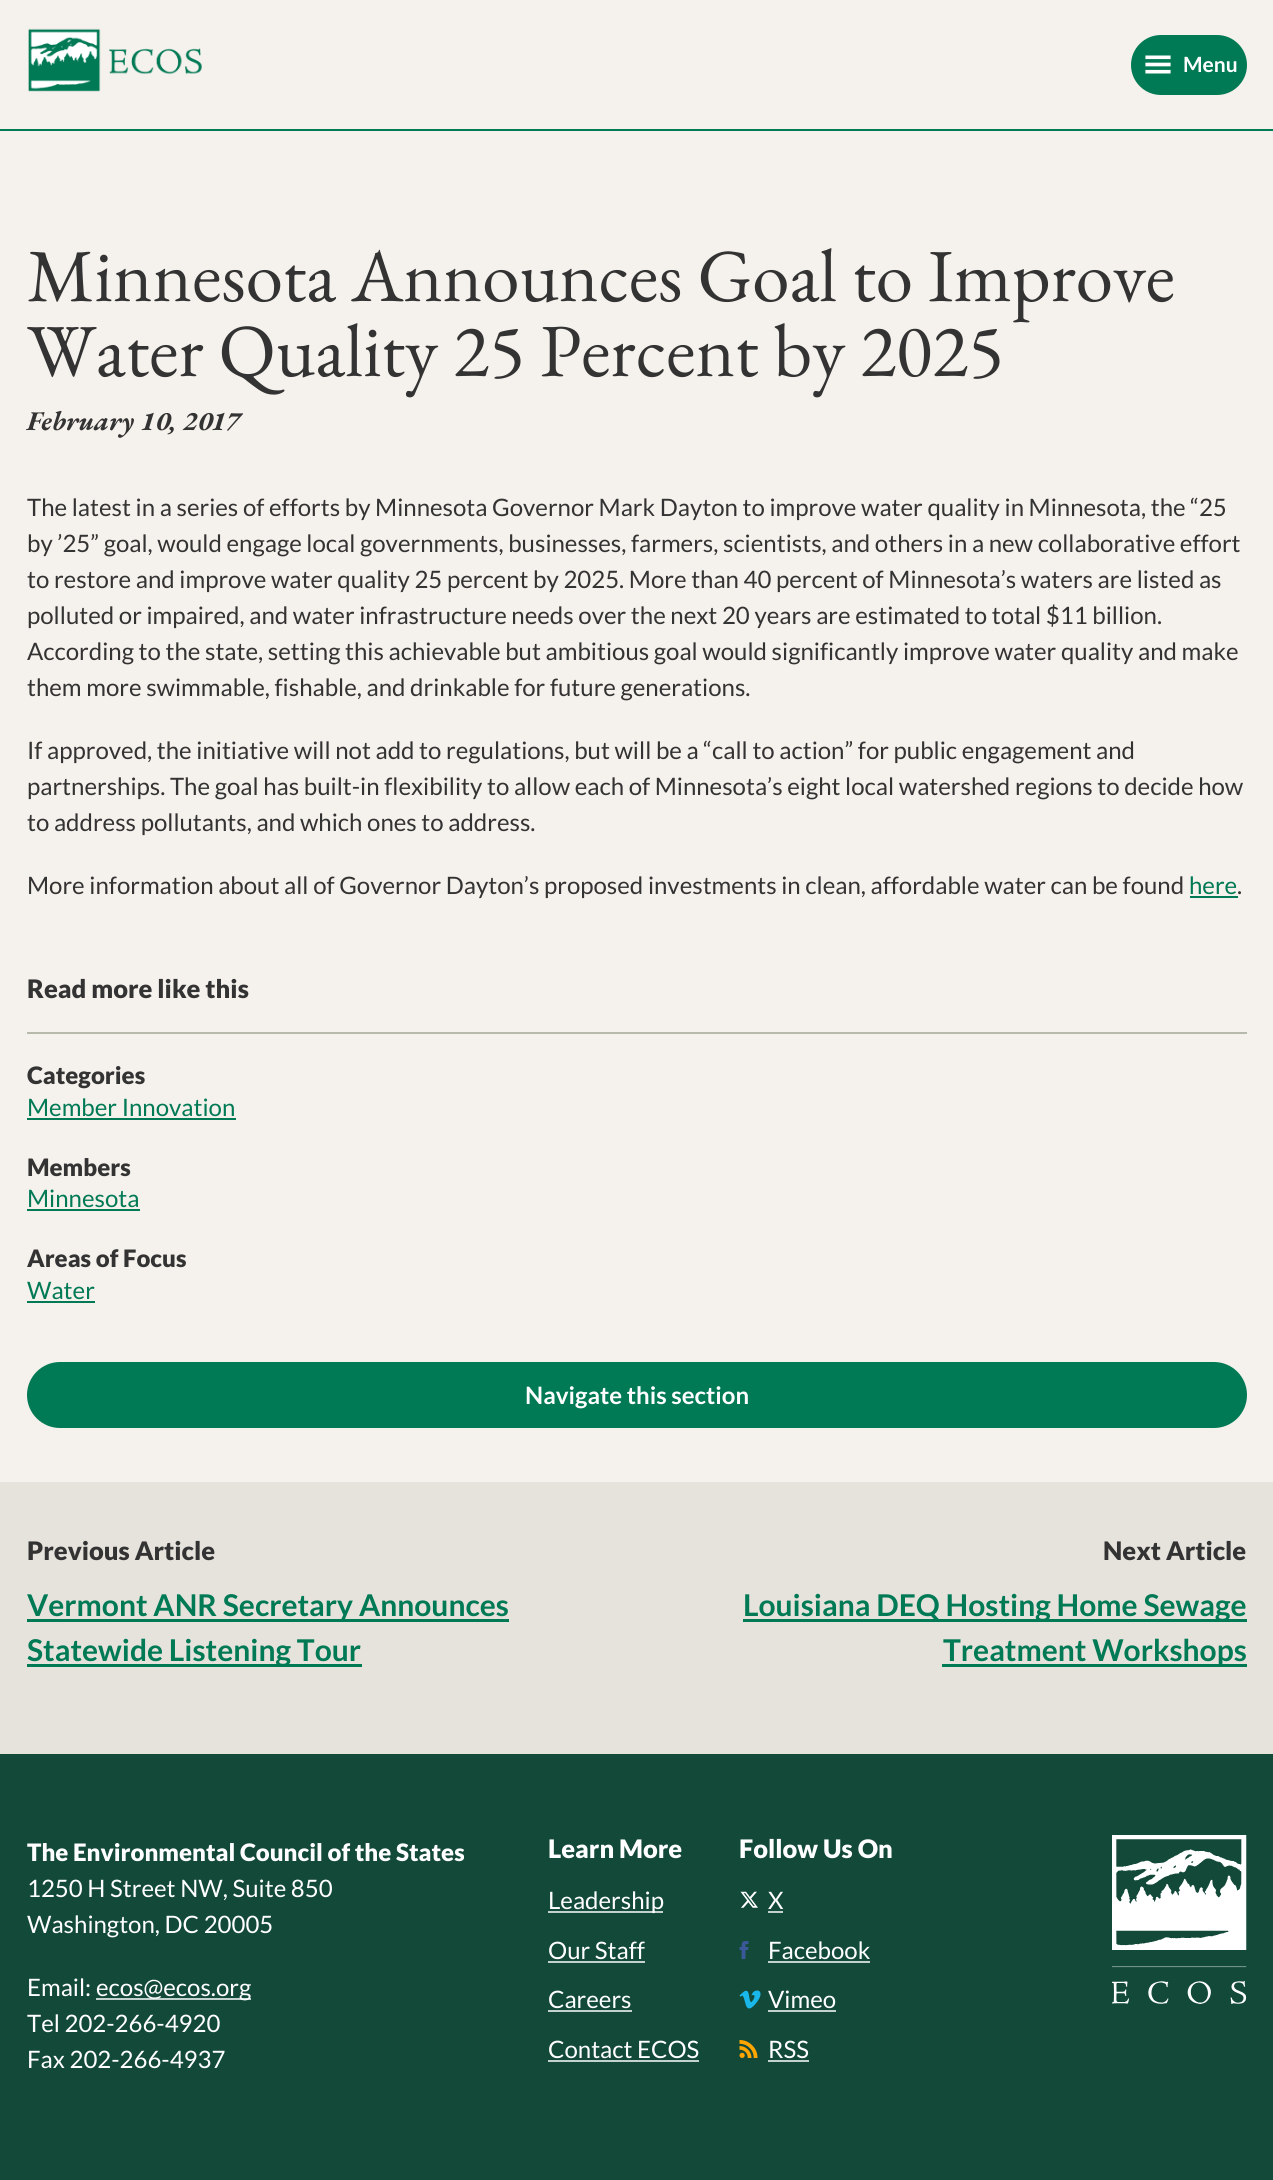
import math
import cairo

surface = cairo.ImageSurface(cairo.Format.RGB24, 1273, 2180)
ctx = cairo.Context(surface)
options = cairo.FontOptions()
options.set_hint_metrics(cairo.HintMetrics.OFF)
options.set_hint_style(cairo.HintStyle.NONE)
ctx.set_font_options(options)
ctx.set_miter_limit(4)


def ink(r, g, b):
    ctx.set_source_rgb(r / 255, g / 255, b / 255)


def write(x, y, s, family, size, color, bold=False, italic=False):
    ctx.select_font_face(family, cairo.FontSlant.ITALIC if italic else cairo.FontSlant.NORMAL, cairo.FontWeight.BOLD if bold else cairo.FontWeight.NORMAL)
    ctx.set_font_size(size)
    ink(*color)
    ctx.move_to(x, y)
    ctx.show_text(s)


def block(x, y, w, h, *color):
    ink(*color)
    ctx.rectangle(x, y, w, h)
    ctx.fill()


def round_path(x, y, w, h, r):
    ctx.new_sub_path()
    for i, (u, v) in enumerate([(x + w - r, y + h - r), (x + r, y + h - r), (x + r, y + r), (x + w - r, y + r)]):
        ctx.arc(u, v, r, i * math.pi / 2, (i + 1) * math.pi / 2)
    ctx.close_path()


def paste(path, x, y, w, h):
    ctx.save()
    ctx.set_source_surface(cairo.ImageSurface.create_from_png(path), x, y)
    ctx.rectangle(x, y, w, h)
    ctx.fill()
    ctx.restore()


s1 = dict(family="Lato", size=21, color=(255, 255, 255), bold=True)
s2 = dict(family="EB Garamond", size=75, color=(51, 51, 51))
s3 = dict(family="EB Garamond", size=27, color=(51, 51, 51), bold=True, italic=True)
s4 = dict(family="Lato", size=24, color=(51, 51, 51))
s5 = dict(family="Lato", size=24, color=(0, 121, 85))
s6 = dict(family="Lato Black", size=25.5, color=(51, 51, 51))
s7 = dict(family="Lato Black", size=24, color=(51, 51, 51))
s8 = dict(family="Lato", size=24, color=(255, 255, 255), bold=True)
s9 = dict(family="Lato", size=30, color=(0, 121, 85), bold=True)
s10 = dict(family="Lato Black", size=24, color=(255, 255, 255))
s11 = dict(family="Lato", size=24, color=(255, 255, 255))
s12 = dict(family="Lato Black", size=25.5, color=(255, 255, 255))

ink(245, 241, 236)
ctx.paint()
block(0, 129, 1273, 2, 0, 121, 85)
paste("pic1.png", 28, 28, 174, 64)
round_path(1131, 35, 116, 60, 30)
ctx.fill()
paste("pic2.png", 1145, 55, 26, 19)
write(1183, 72, "Menu", **s1)
write(27, 301, "Minnesota Announces Goal to Improve", **s2)
write(27, 376, "Water Quality 25 Percent by 2025", **s2)
write(27, 430, "February 10, 2017", **s3)
write(27, 516, "The latest in a series of efforts by Minnesota Governor Mark Dayton to improve water quality in Minnesota, the “25", **s4)
write(27, 552, "by ’25” goal, would engage local governments, businesses, farmers, scientists, and others in a new collaborative effort", **s4)
write(27, 588, "to restore and improve water quality 25 percent by 2025. More than 40 percent of Minnesota’s waters are listed as", **s4)
write(27, 624, "polluted or impaired, and water infrastructure needs over the next 20 years are estimated to total $11 billion.", **s4)
write(27, 660, "According to the state, setting this achievable but ambitious goal would significantly improve water quality and make", **s4)
write(27, 696, "them more swimmable, fishable, and drinkable for future generations.", **s4)
write(27, 759, "If approved, the initiative will not add to regulations, but will be a “call to action” for public engagement and", **s4)
write(27, 795, "partnerships. The goal has built-in flexibility to allow each of Minnesota’s eight local watershed regions to decide how", **s4)
write(27, 831, "to address pollutants, and which ones to address.", **s4)
write(27, 894, "More information about all of Governor Dayton’s proposed investments in clean, affordable water can be found", **s4)
write(1189, 894, "here", **s5)
block(1190, 896, 48, 2, 0, 121, 85)
write(1237, 894, ".", **s4)
block(27, 1032, 1220, 2, 183, 185, 173)
write(27, 998, "Read more like this", **s6)
write(27, 1084, "Categories", **s7)
write(27, 1116, "Member Innovation", **s5)
block(27, 1118, 209, 2, 0, 121, 85)
write(27, 1176, "Members", **s7)
write(27, 1207, "Minnesota", **s5)
block(27, 1209, 113, 2, 0, 121, 85)
write(27, 1267, "Areas of Focus", **s7)
write(27, 1299, "Water", **s5)
block(27, 1301, 68, 2, 0, 121, 85)
round_path(27, 1362, 1220, 66, 33)
ctx.fill()
write(525, 1404, "Navigate this section", **s8)
block(0, 1482, 1273, 272, 230, 227, 221)
write(27, 1560, "Previous Article", **s6)
block(27, 1619, 482, 3, 0, 121, 85)
write(27, 1616, "Vermont ANR Secretary Announces", **s9)
block(27, 1664, 335, 3, 0, 121, 85)
write(27, 1661, "Statewide Listening Tour", **s9)
write(1103, 1560, "Next Article", **s6)
block(743, 1619, 504, 3, 0, 121, 85)
write(743, 1616, "Louisiana DEQ Hosting Home Sewage", **s9)
block(942, 1664, 305, 3, 0, 121, 85)
write(943, 1661, "Treatment Workshops", **s9)
block(0, 1754, 1273, 426, 19, 73, 57)
write(27, 1861, "The Environmental Council of the States", **s10)
write(27, 1897, "1250 H Street NW, Suite 850", **s11)
write(27, 1933, "Washington, DC 20005", **s11)
write(27, 1996, "Email:", **s11)
block(96, 1998, 155, 2, 196, 210, 206)
write(96, 1996, "ecos@ecos.org", **s11)
write(27, 2032, "Tel 202-266-4920", **s11)
write(27, 2068, "Fax 202-266-4937", **s11)
write(548, 1858, "Learn More", **s12)
block(548, 1911, 115, 2, 196, 210, 206)
write(548, 1909, "Leadership", **s11)
write(548, 1959, "Our Staff", **s11)
block(548, 1961, 97, 2, 196, 210, 206)
write(548, 2008, "Careers", **s11)
block(548, 2010, 84, 2, 196, 210, 206)
write(548, 2058, "Contact ECOS", **s11)
block(548, 2060, 151, 2, 196, 210, 206)
write(739, 1858, "Follow Us On", **s12)
paste("pic3.png", 740, 1891, 18, 17)
write(768, 1909, "X", **s11)
block(768, 1911, 15, 2, 196, 210, 206)
paste("pic4.png", 739, 1941, 10, 18)
write(768, 1959, "Facebook", **s11)
block(768, 1961, 102, 2, 196, 210, 206)
paste("pic5.png", 739, 1990, 22, 19)
write(768, 2008, "Vimeo", **s11)
block(768, 2010, 68, 2, 196, 210, 206)
paste("pic6.png", 739, 2040, 19, 18)
write(768, 2058, "RSS", **s11)
block(768, 2060, 41, 2, 196, 210, 206)
paste("pic7.png", 1112, 1835, 135, 169)
surface.write_to_png("screenshot.png")
